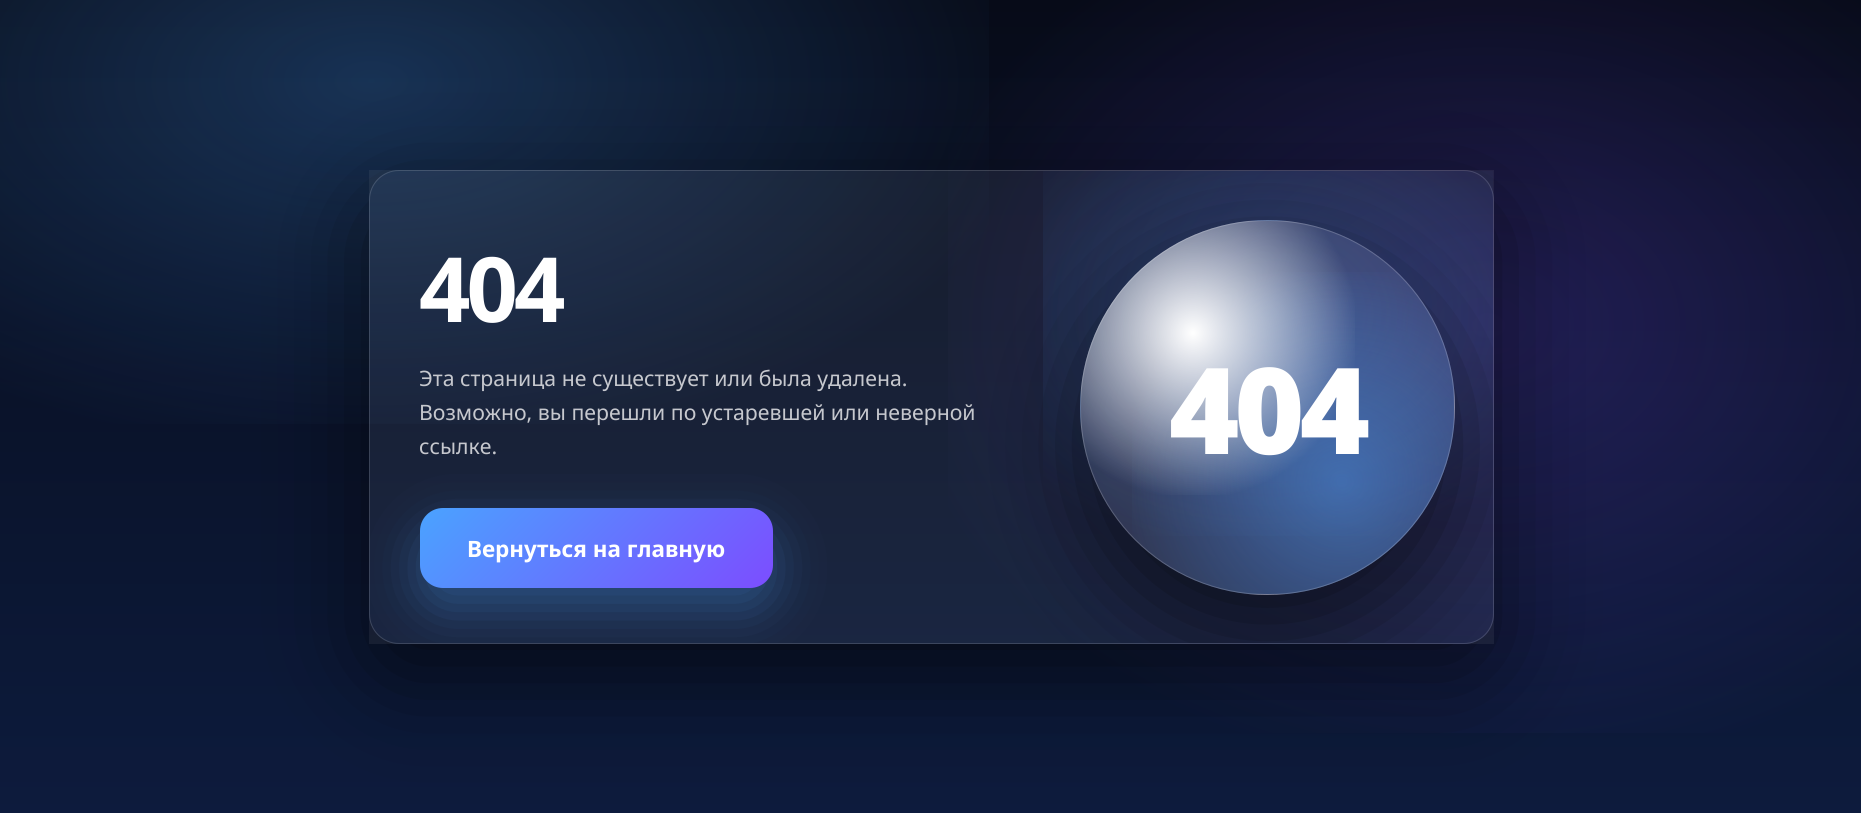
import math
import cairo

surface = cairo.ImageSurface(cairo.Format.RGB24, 1861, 813)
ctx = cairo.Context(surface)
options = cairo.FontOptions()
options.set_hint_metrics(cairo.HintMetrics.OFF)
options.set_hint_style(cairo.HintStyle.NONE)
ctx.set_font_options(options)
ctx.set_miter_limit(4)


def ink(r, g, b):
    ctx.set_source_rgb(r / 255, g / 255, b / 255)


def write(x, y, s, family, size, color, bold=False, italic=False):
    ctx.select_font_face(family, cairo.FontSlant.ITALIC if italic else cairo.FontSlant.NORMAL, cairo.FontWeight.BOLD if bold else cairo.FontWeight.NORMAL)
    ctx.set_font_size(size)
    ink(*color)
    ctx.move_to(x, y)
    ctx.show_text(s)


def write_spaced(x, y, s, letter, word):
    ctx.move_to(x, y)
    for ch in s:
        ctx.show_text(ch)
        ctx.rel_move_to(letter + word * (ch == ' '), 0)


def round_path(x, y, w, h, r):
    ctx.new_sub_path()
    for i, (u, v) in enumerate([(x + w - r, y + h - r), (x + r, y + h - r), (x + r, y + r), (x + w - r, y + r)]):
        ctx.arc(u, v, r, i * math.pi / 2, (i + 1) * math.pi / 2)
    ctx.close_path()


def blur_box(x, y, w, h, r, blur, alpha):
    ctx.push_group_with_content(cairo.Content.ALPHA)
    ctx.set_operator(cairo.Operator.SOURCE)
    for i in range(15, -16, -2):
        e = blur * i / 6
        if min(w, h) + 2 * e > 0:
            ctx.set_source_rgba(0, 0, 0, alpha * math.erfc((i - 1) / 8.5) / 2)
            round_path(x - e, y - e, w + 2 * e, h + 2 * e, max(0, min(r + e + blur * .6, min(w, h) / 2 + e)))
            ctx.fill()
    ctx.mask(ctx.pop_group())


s1 = dict(family="Noto Sans", size=21.25, color=(198, 200, 206))
s2 = dict(family="Noto Sans", size=22.5, color=(255, 255, 255), bold=True)

ink(255, 255, 255)
ctx.paint()
gradient = cairo.LinearGradient(931, 0, 931, 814)
gradient.add_color_stop_rgba(0, 0.027, 0.043, 0.094, 1)
gradient.add_color_stop_rgba(1, 0.051, 0.106, 0.239, 1)
ctx.set_source(gradient)
ctx.rectangle(0, 0, 1861, 813)
ctx.fill()
gradient = cairo.RadialGradient(0, 0, 0, 0, 0, 1)
gradient.set_matrix(cairo.Matrix(1 / 1000, 0, 0, 1 / 750, -1 * 1489 / 1000, -1 * 326 / 750))
gradient.add_color_stop_rgba(0, 0.486, 0.302, 1, 0.22)
gradient.add_color_stop_rgba(0.6, 0.486, 0.302, 1, 0)
ctx.set_source(gradient)
ctx.rectangle(948, 0, 913, 733)
ctx.fill()
gradient = cairo.RadialGradient(0, 0, 0, 0, 0, 1)
gradient.set_matrix(cairo.Matrix(1 / 1125, 0, 0, 1 / 625, -1 * 372 / 1125, -1 * 81 / 625))
gradient.add_color_stop_rgba(0, 0.29, 0.639, 1, 0.25)
gradient.add_color_stop_rgba(0.6, 0.29, 0.639, 1, 0)
ctx.set_source(gradient)
ctx.rectangle(0, 0, 989, 424)
ctx.fill()
ctx.save()
ctx.set_fill_rule(cairo.FillRule.EVEN_ODD)
ctx.new_path()
ctx.move_to(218, 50)
ctx.line_to(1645, 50)
ctx.line_to(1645, 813)
ctx.line_to(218, 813)
ctx.close_path()
ctx.move_to(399, 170)
ctx.line_to(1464, 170)
ctx.curve_to(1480.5, 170, 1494, 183.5, 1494, 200)
ctx.line_to(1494, 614)
ctx.curve_to(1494, 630.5, 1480.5, 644, 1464, 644)
ctx.line_to(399, 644)
ctx.curve_to(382.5, 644, 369, 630.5, 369, 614)
ctx.line_to(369, 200)
ctx.curve_to(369, 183.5, 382.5, 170, 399, 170)
ctx.close_path()
ctx.clip()
ink(0, 0, 0)
blur_box(369, 201, 1125, 474, 30, 50, 0.6)
ctx.restore()
ctx.set_source_rgba(1, 1, 1, 0.06)
ctx.rectangle(369, 170, 1125, 474)
ctx.fill()
round_path(369.5, 170.5, 1124, 473, 29.5)
ctx.set_source_rgba(1, 1, 1, 0.15)
ctx.set_line_width(1)
ctx.stroke()
ctx.select_font_face("Noto Sans", cairo.FontSlant.NORMAL, cairo.FontWeight.BOLD)
ctx.set_font_size(90)
ink(255, 255, 255)
write_spaced(419, 322, "404", -4, 0)
write(419, 386, "Эта страница не существует или была удалена.", **s1)
write(419, 420, "Возможно, вы перешли по устаревшей или неверной", **s1)
write(419, 454, "ссылке.", **s1)
ctx.save()
round_path(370, 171, 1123, 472, 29)
ctx.clip()
ink(74, 163, 255)
blur_box(420, 528, 353, 80, 23, 25, 0.35)
ctx.restore()
gradient = cairo.LinearGradient(488, 439, 704, 656)
gradient.add_color_stop_rgba(0, 0.29, 0.639, 1, 1)
gradient.add_color_stop_rgba(1, 0.486, 0.302, 1, 1)
ctx.set_source(gradient)
round_path(420, 508, 353, 80, 23)
ctx.fill()
write(467, 557, "Вернуться на главную", **s2)
gradient = cairo.RadialGradient(0, 0, 0, 0, 0, 1)
gradient.set_matrix(cairo.Matrix(1 / 500, 0, 0, 1 / 375, -1 * 1268 / 500, -1 * 313 / 375))
gradient.add_color_stop_rgba(0, 0.29, 0.639, 1, 0.25)
gradient.add_color_stop_rgba(0.65, 0.29, 0.639, 1, 0)
ctx.set_source(gradient)
ctx.rectangle(1043, 171, 450, 365)
ctx.fill()
ctx.save()
round_path(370, 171, 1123, 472, 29)
ctx.clip()
ctx.set_fill_rule(cairo.FillRule.EVEN_ODD)
ctx.new_path()
ctx.move_to(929, 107)
ctx.line_to(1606, 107)
ctx.line_to(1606, 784)
ctx.line_to(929, 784)
ctx.close_path()
ctx.move_to(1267.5, 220)
ctx.curve_to(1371, 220, 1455, 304, 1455, 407.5)
ctx.curve_to(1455, 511, 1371, 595, 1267.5, 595)
ctx.curve_to(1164, 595, 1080, 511, 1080, 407.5)
ctx.curve_to(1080, 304, 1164, 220, 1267.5, 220)
ctx.close_path()
ctx.clip()
ink(0, 0, 0)
blur_box(1080, 258, 375, 375, 187.5, 50, 0.6)
ctx.restore()
ctx.set_source_rgba(1, 1, 1, 0.08)
ctx.arc(1267.5, 407.5, 187.5, 0, 2 * math.pi)
ctx.fill()
ctx.save()
round_path(1080, 220, 375, 375, 187.5)
ctx.clip()
gradient = cairo.RadialGradient(1342, 110, 0, 1342, 110, 369)
gradient.add_color_stop_rgba(0, 0.29, 0.639, 1, 0.45)
gradient.add_color_stop_rgba(0.6, 0.29, 0.639, 1, 0)
ctx.set_source(gradient)
ctx.rectangle(1250, 220, 36, 1)
ctx.fill()
gradient = cairo.RadialGradient(970, 482, 0, 970, 482, 369)
gradient.add_color_stop_rgba(0, 0.29, 0.639, 1, 0.45)
gradient.add_color_stop_rgba(0.6, 0.29, 0.639, 1, 0)
ctx.set_source(gradient)
ctx.rectangle(1080, 389, 1, 37)
ctx.fill()
gradient = cairo.RadialGradient(1342, 482, 0, 1342, 482, 369)
gradient.add_color_stop_rgba(0, 0.29, 0.639, 1, 0.45)
gradient.add_color_stop_rgba(0.6, 0.29, 0.639, 1, 0)
ctx.set_source(gradient)
ctx.rectangle(1132, 272, 322, 322)
ctx.fill()
gradient = cairo.RadialGradient(1193, 333, 0, 1193, 333, 369)
gradient.add_color_stop_rgba(0, 1, 1, 1, 1)
gradient.add_color_stop_rgba(0.45, 1, 1, 1, 0)
ctx.set_source(gradient)
ctx.rectangle(1081, 221, 274, 274)
ctx.fill()
gradient = cairo.RadialGradient(1566, 333, 0, 1566, 333, 369)
gradient.add_color_stop_rgba(0, 1, 1, 1, 1)
gradient.add_color_stop_rgba(0.45, 1, 1, 1, 0)
ctx.set_source(gradient)
ctx.rectangle(1454, 389, 1, 36)
ctx.fill()
gradient = cairo.RadialGradient(1193, 706, 0, 1193, 706, 369)
gradient.add_color_stop_rgba(0, 1, 1, 1, 1)
gradient.add_color_stop_rgba(0.45, 1, 1, 1, 0)
ctx.set_source(gradient)
ctx.rectangle(1249, 594, 36, 1)
ctx.fill()
ctx.restore()
ctx.arc(1267.5, 407.5, 187, 0, 2 * math.pi)
ctx.set_source_rgba(1, 1, 1, 0.2)
ctx.stroke()
ctx.select_font_face("Noto Sans Black")
ctx.set_font_size(120)
ink(255, 255, 255)
write_spaced(1169, 454, "404", -5, 0)
surface.write_to_png("screenshot.png")
